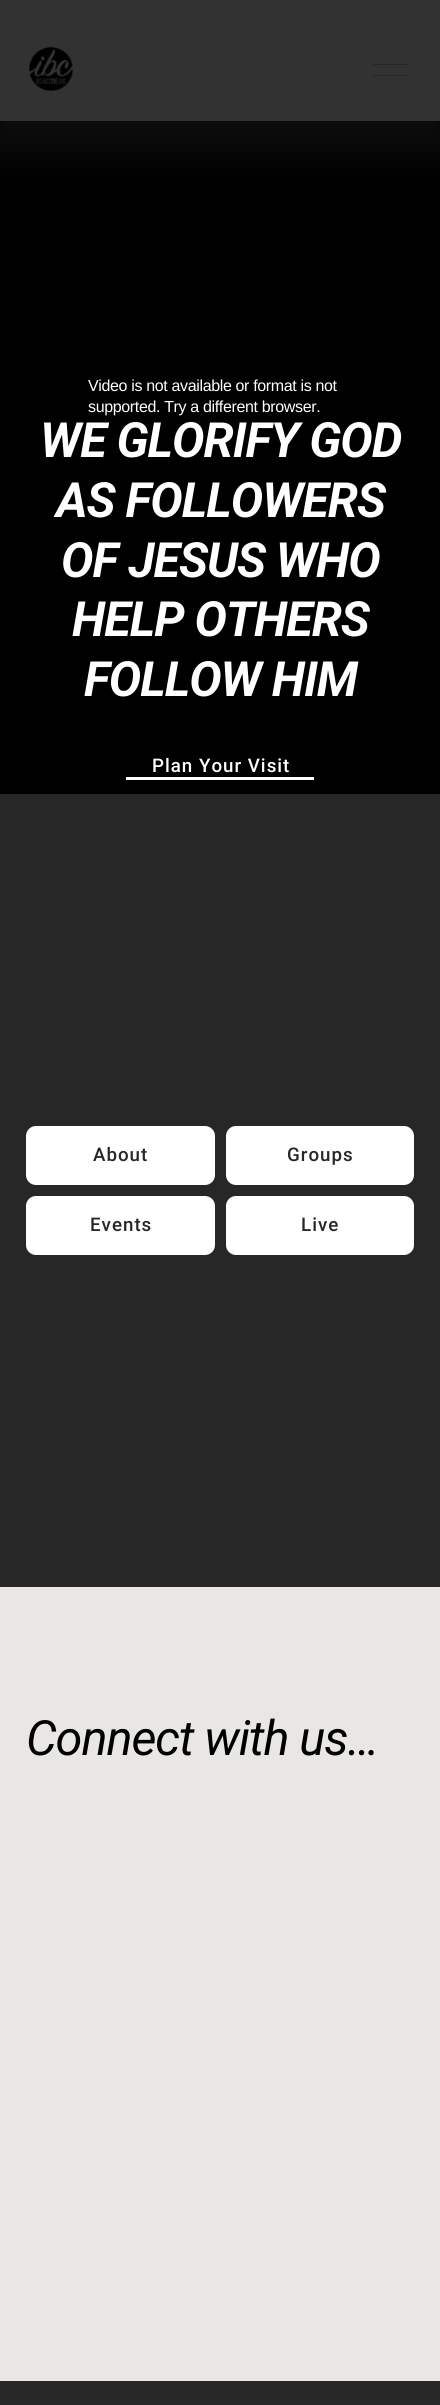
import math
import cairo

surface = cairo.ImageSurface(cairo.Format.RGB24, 440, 2405)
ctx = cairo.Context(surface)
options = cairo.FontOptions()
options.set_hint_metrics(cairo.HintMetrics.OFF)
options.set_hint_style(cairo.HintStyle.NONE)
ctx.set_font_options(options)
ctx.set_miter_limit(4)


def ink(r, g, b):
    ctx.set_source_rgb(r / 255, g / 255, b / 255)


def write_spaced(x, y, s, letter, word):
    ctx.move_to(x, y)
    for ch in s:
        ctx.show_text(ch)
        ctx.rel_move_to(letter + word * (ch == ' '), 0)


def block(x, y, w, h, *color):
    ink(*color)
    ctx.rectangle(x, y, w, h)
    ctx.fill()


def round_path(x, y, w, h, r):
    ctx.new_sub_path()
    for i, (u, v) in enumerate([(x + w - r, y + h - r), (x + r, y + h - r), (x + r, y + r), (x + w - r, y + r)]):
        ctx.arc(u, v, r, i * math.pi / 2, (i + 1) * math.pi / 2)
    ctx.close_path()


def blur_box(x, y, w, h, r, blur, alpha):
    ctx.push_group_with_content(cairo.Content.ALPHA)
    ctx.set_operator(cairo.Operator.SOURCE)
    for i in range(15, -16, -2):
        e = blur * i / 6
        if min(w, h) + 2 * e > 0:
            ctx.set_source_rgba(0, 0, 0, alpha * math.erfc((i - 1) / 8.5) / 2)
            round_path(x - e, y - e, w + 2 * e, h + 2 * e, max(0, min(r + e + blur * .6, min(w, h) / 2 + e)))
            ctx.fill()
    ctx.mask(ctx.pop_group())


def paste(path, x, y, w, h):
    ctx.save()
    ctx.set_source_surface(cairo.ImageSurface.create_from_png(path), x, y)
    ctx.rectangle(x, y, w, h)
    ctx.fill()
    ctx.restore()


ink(233, 231, 228)
ctx.paint()
block(0, 121, 440, 673, 0, 0, 0)
ink(14, 14, 14)
blur_box(-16, -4, 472, 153, 0, 24, 1)
block(0, 0, 440, 121, 50, 50, 50)
paste("pic1.png", 29, 47, 44, 44)
block(373, 64, 35, 1, 39, 39, 39)
block(373, 75, 35, 1, 39, 39, 39)
ctx.select_font_face("Liberation Sans")
ctx.set_font_size(16)
ink(255, 255, 255)
write_spaced(88, 391, "Video is not available or format is not", -0.35, 0)
write_spaced(88, 412, "supported. Try a different browser.", -0.35, 0)
ctx.select_font_face("Roboto", cairo.FontSlant.ITALIC, cairo.FontWeight.BOLD)
ctx.set_font_size(48.5)
write_spaced(40, 457, "WE GLORIFY GOD", -1, 0)
write_spaced(56, 517, "AS FOLLOWERS", -1, 0)
write_spaced(61, 577, "OF JESUS WHO", -1, 0)
write_spaced(72, 636, "HELP OTHERS", -1, 0)
write_spaced(84, 696, "FOLLOW HIM", -1, 0)
block(126, 777, 188, 3, 255, 255, 255)
ctx.select_font_face("Roboto Medium")
ctx.set_font_size(18.75)
write_spaced(152, 772, "Plan Your Visit", 1, 0)
block(0, 794, 440, 793, 39, 39, 39)
ink(255, 255, 255)
round_path(26, 1126, 189, 59, 10)
ctx.fill()
ink(39, 39, 39)
write_spaced(93, 1161, "About", 1, 0)
ink(255, 255, 255)
round_path(226, 1126, 188, 59, 10)
ctx.fill()
ink(39, 39, 39)
write_spaced(287, 1161, "Groups", 1, 0)
ink(255, 255, 255)
round_path(26, 1196, 189, 59, 10)
ctx.fill()
ink(39, 39, 39)
write_spaced(90, 1231, "Events", 1, 0)
ink(255, 255, 255)
round_path(226, 1196, 188, 59, 10)
ctx.fill()
ink(39, 39, 39)
write_spaced(301, 1231, "Live", 1, 0)
ctx.select_font_face("Roboto", cairo.FontSlant.ITALIC)
ctx.set_font_size(48.5)
ink(0, 0, 0)
write_spaced(26, 1755, "Connect with us…", -1, 0)
block(0, 2381, 440, 24, 39, 39, 39)
surface.write_to_png("screenshot.png")
